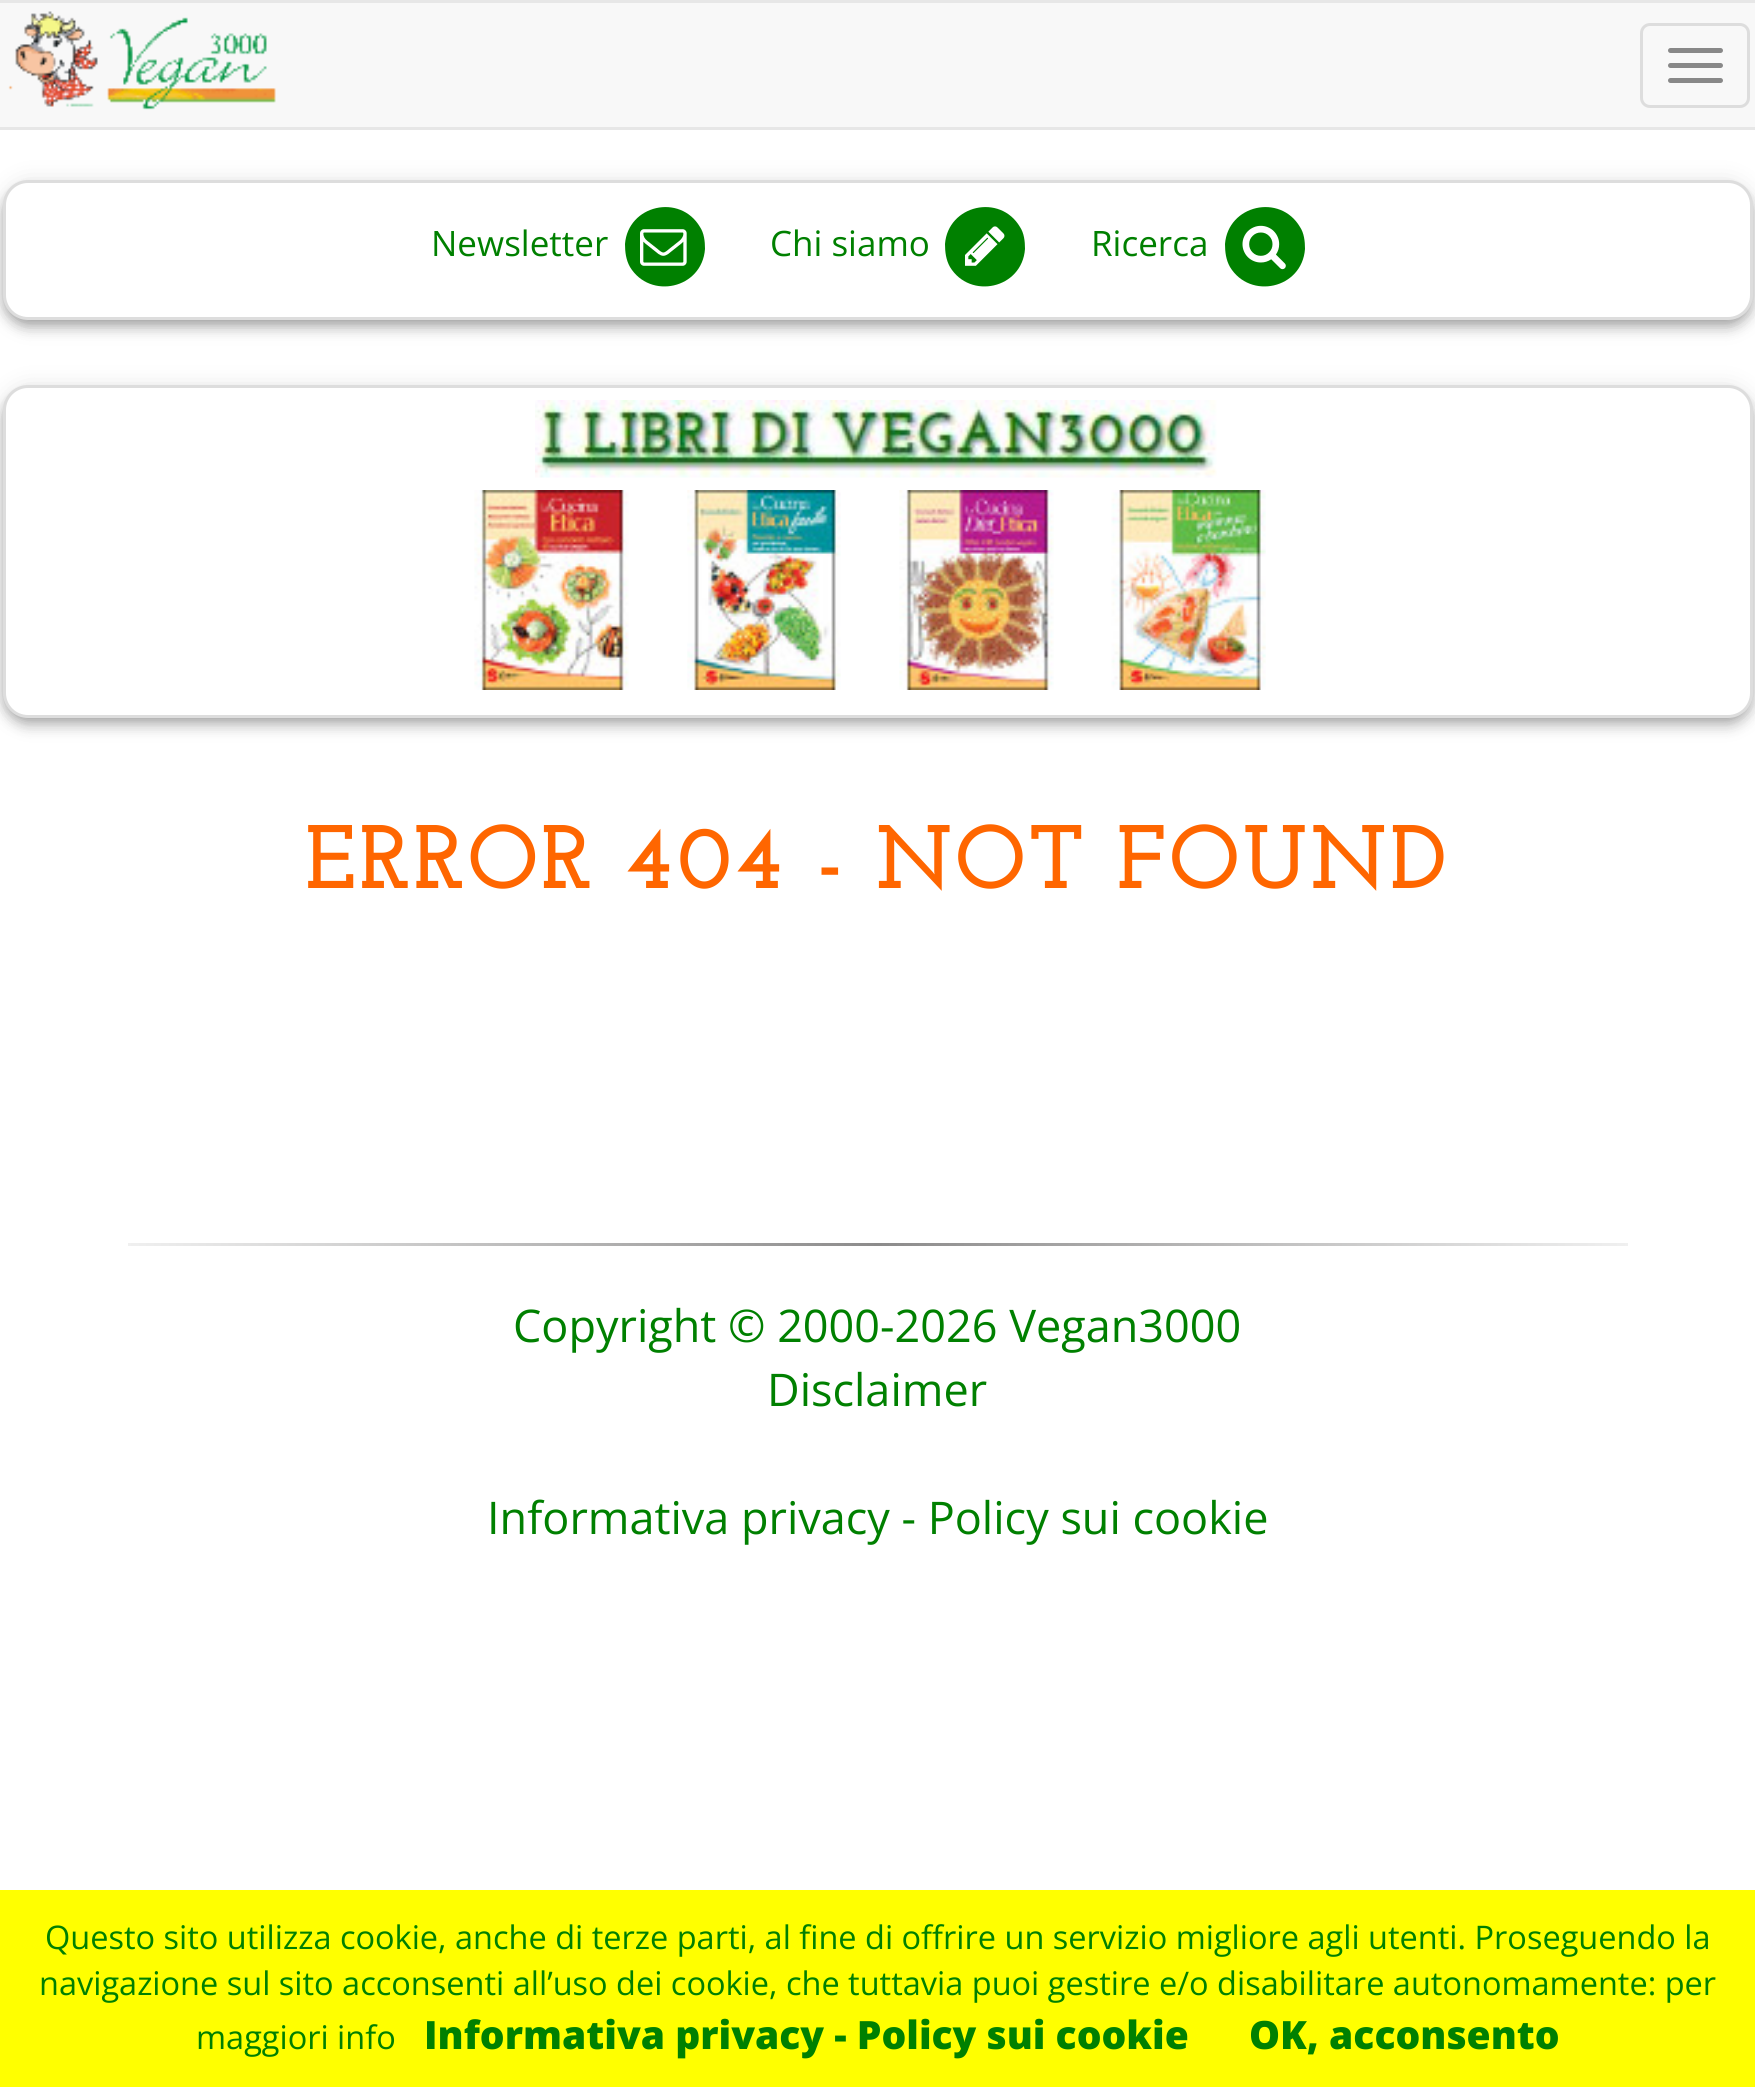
import math
import cairo

surface = cairo.ImageSurface(cairo.Format.RGB24, 1755, 2087)
ctx = cairo.Context(surface)
options = cairo.FontOptions()
options.set_hint_metrics(cairo.HintMetrics.OFF)
options.set_hint_style(cairo.HintStyle.NONE)
ctx.set_font_options(options)
ctx.set_miter_limit(4)


def ink(r, g, b):
    ctx.set_source_rgb(r / 255, g / 255, b / 255)


def write(x, y, s, family, size, color, bold=False, italic=False):
    ctx.select_font_face(family, cairo.FontSlant.ITALIC if italic else cairo.FontSlant.NORMAL, cairo.FontWeight.BOLD if bold else cairo.FontWeight.NORMAL)
    ctx.set_font_size(size)
    ink(*color)
    ctx.move_to(x, y)
    ctx.show_text(s)


def write_spaced(x, y, s, letter, word):
    ctx.move_to(x, y)
    for ch in s:
        ctx.show_text(ch)
        ctx.rel_move_to(letter + word * (ch == ' '), 0)


def block(x, y, w, h, *color):
    ink(*color)
    ctx.rectangle(x, y, w, h)
    ctx.fill()


def round_path(x, y, w, h, r):
    ctx.new_sub_path()
    for i, (u, v) in enumerate([(x + w - r, y + h - r), (x + r, y + h - r), (x + r, y + r), (x + w - r, y + r)]):
        ctx.arc(u, v, r, i * math.pi / 2, (i + 1) * math.pi / 2)
    ctx.close_path()


def blur_box(x, y, w, h, r, blur, alpha):
    ctx.push_group_with_content(cairo.Content.ALPHA)
    ctx.set_operator(cairo.Operator.SOURCE)
    for i in range(15, -16, -2):
        e = blur * i / 6
        if min(w, h) + 2 * e > 0:
            ctx.set_source_rgba(0, 0, 0, alpha * math.erfc((i - 1) / 8.5) / 2)
            round_path(x - e, y - e, w + 2 * e, h + 2 * e, max(0, min(r + e + blur * .6, min(w, h) / 2 + e)))
            ctx.fill()
    ctx.mask(ctx.pop_group())


def paste(path, x, y, w, h):
    ctx.save()
    ctx.set_source_surface(cairo.ImageSurface.create_from_png(path), x, y)
    ctx.rectangle(x, y, w, h)
    ctx.fill()
    ctx.restore()


s1 = dict(family="Open Sans", size=35, color=(0, 128, 0))
s2 = dict(family="Open Sans", size=45, color=(0, 128, 0))
s3 = dict(family="Open Sans", size=32.5, color=(0, 128, 0))
s4 = dict(family="Open Sans ExtraBold", size=39, color=(0, 128, 0))

ink(255, 255, 255)
ctx.paint()
ink(248, 248, 248)
ctx.rectangle(-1.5, 1.5, 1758, 127)
ctx.fill_preserve()
ink(231, 231, 231)
ctx.set_line_width(3)
ctx.stroke()
paste("pic1.png", 8, 11, 268, 99)
round_path(1641.5, 24.5, 107, 82, 8.5)
ink(221, 221, 221)
ctx.stroke()
ink(136, 136, 136)
round_path(1668, 48, 55, 5, 2.5)
ctx.fill()
round_path(1668, 63, 55, 5, 2.5)
ctx.fill()
round_path(1668, 78, 55, 5, 2.5)
ctx.fill()
ink(0, 0, 0)
blur_box(5, 188, 1745, 135, 23, 5, 0.2)
blur_box(3, 183, 1750, 140, 25, 12.5, 0.12)
blur_box(3, 190, 1750, 140, 25, 6, 0.14)
ink(255, 255, 255)
round_path(4.5, 181.5, 1747, 137, 23.5)
ctx.fill_preserve()
ink(221, 221, 221)
ctx.stroke()
write(431, 256, "Newsletter", **s1)
ctx.new_path()
ctx.move_to(700, 227)
ctx.curve_to(704, 233, 705, 241, 705, 249)
ctx.curve_to(702, 289, 650, 300, 630, 267)
ctx.curve_to(626, 260, 625, 252, 625, 244)
ctx.curve_to(628, 205, 680, 193, 700, 227)
ctx.close_path()
ctx.fill()
paste("pic2.png", 640, 229, 47, 37)
write(770, 256, "Chi siamo", **s1)
ctx.new_path()
ctx.move_to(1020, 227)
ctx.curve_to(1024, 233, 1025, 241, 1025, 249)
ctx.curve_to(1022, 289, 970, 300, 950, 267)
ctx.curve_to(946, 260, 945, 252, 945, 244)
ctx.curve_to(948, 205, 1000, 193, 1020, 227)
ctx.close_path()
ctx.fill()
paste("pic3.png", 965, 226, 40, 40)
write(1091, 256, "Ricerca", **s1)
ctx.new_path()
ctx.move_to(1300, 227)
ctx.curve_to(1304, 233, 1305, 241, 1305, 249)
ctx.curve_to(1302, 289, 1250, 300, 1230, 267)
ctx.curve_to(1226, 260, 1225, 252, 1225, 244)
ctx.curve_to(1228, 205, 1280, 193, 1300, 227)
ctx.close_path()
ctx.fill()
paste("pic4.png", 1242, 225, 44, 45)
ink(0, 0, 0)
blur_box(5, 393, 1745, 327, 23, 5, 0.2)
blur_box(3, 388, 1750, 332, 25, 12.5, 0.12)
blur_box(3, 395, 1750, 333, 25, 6, 0.14)
ink(255, 255, 255)
round_path(4.5, 386.5, 1747, 330, 23.5)
ctx.fill_preserve()
ink(221, 221, 221)
ctx.stroke()
paste("pic5.png", 535, 400, 682, 78)
paste("pic6.png", 474, 490, 155, 200)
paste("pic7.png", 687, 490, 154, 200)
paste("pic8.png", 899, 490, 155, 200)
paste("pic9.png", 1111, 490, 155, 200)
ctx.select_font_face("Josefin Slab", cairo.FontSlant.NORMAL, cairo.FontWeight.BOLD)
ctx.set_font_size(90)
ink(255, 102, 0)
write_spaced(305, 888, "ERROR 404 - NOT FOUND", 2.5, 0)
gradient = cairo.LinearGradient(128, 1244, 1628, 1244)
gradient.add_color_stop_rgba(0, 0.941, 0.941, 0.941, 1)
gradient.add_color_stop_rgba(0.5, 0.549, 0.545, 0.545, 1)
gradient.add_color_stop_rgba(1, 0.941, 0.941, 0.941, 1)
ctx.set_source(gradient)
ctx.rectangle(128, 1243, 1500, 3)
ctx.fill()
write(513, 1342, "Copyright © 2000-2026 Vegan3000", **s2)
write(767, 1406, "Disclaimer", **s2)
write(487, 1534, "Informativa privacy - Policy sui cookie", **s2)
block(0, 1890, 1755, 197, 255, 255, 0)
write(45, 1949, "Questo sito utilizza cookie, anche di terze parti, al fine di offrire un servizio migliore agli utenti. Proseguendo la", **s3)
write(39, 1995, "navigazione sul sito acconsenti all’uso dei cookie, che tuttavia puoi gestire e/o disabilitare autonomamente: per", **s3)
write(196, 2049, "maggiori info", **s3)
write(424, 2049, "Informativa privacy - Policy sui cookie", **s4)
write(1249, 2049, "OK, acconsento", **s4)
surface.write_to_png("screenshot.png")
